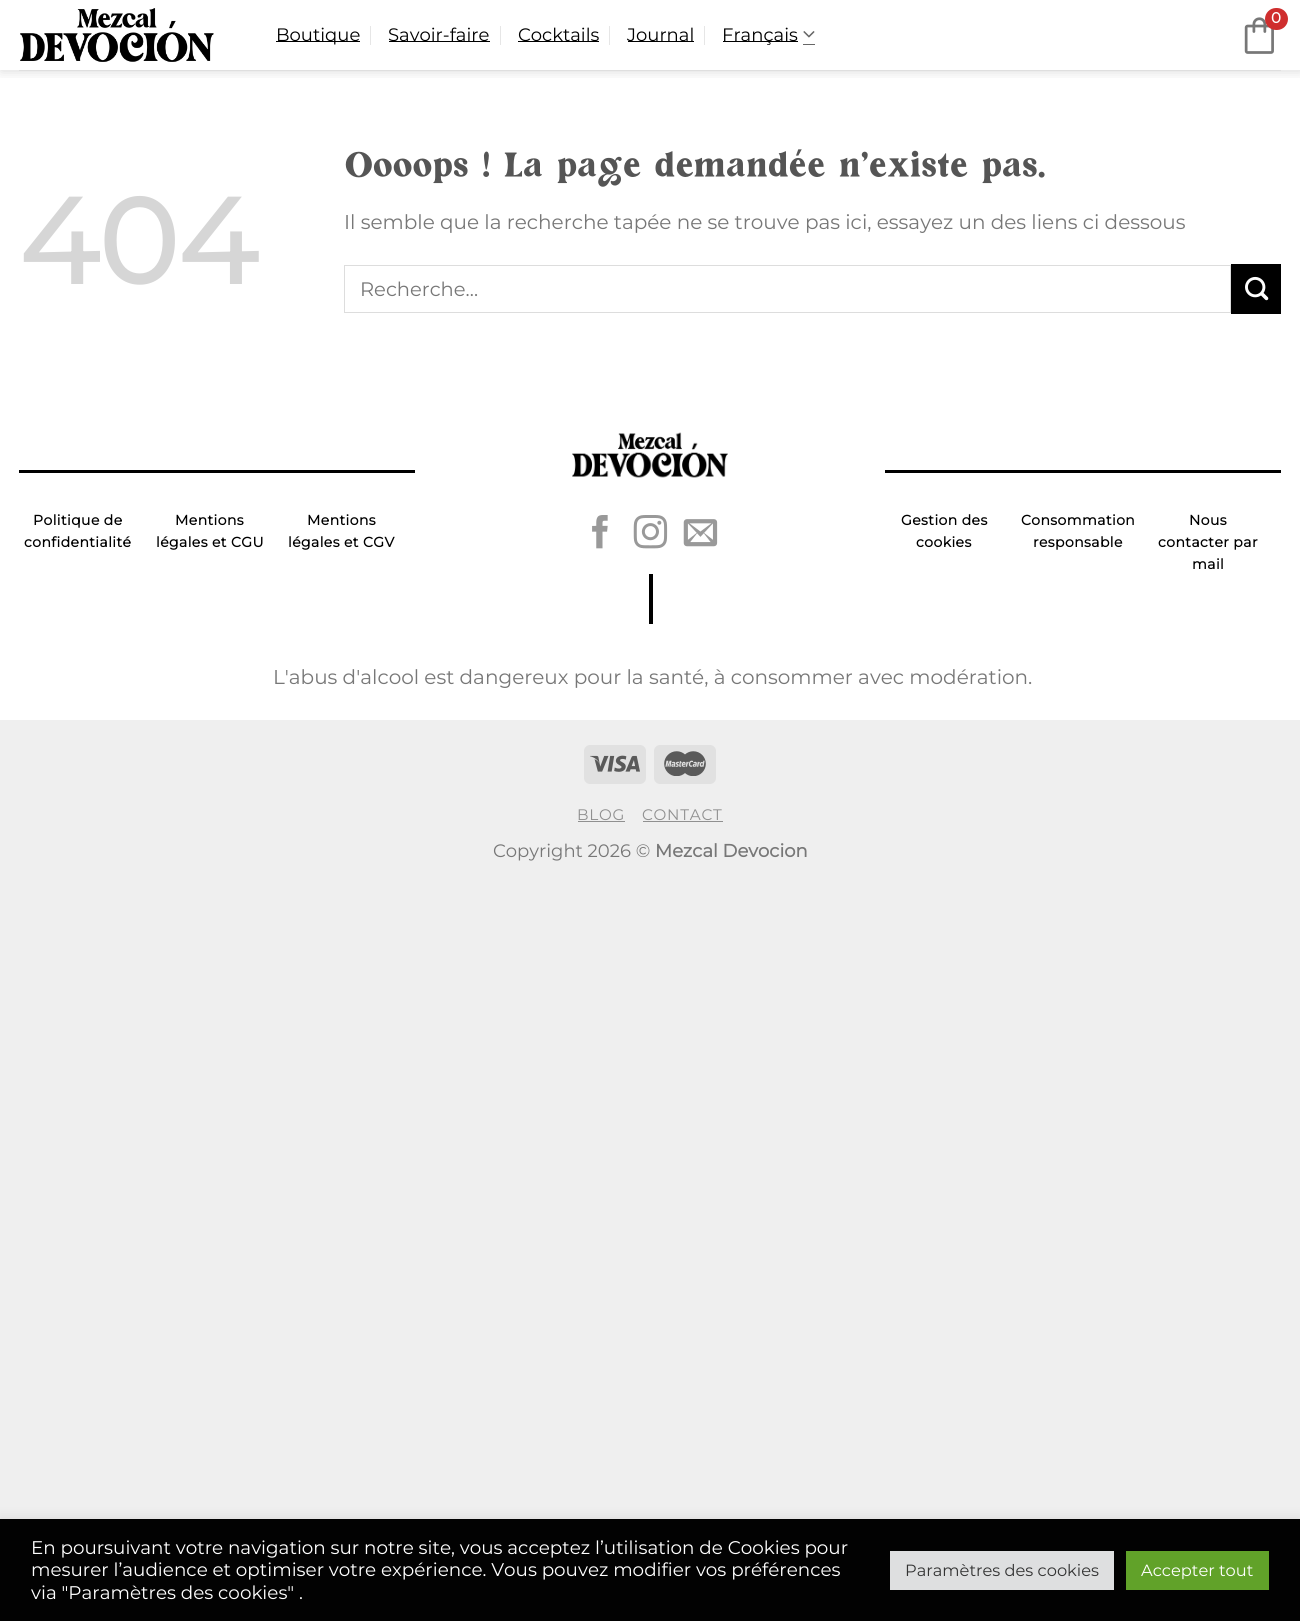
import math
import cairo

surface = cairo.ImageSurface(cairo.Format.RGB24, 1300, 1621)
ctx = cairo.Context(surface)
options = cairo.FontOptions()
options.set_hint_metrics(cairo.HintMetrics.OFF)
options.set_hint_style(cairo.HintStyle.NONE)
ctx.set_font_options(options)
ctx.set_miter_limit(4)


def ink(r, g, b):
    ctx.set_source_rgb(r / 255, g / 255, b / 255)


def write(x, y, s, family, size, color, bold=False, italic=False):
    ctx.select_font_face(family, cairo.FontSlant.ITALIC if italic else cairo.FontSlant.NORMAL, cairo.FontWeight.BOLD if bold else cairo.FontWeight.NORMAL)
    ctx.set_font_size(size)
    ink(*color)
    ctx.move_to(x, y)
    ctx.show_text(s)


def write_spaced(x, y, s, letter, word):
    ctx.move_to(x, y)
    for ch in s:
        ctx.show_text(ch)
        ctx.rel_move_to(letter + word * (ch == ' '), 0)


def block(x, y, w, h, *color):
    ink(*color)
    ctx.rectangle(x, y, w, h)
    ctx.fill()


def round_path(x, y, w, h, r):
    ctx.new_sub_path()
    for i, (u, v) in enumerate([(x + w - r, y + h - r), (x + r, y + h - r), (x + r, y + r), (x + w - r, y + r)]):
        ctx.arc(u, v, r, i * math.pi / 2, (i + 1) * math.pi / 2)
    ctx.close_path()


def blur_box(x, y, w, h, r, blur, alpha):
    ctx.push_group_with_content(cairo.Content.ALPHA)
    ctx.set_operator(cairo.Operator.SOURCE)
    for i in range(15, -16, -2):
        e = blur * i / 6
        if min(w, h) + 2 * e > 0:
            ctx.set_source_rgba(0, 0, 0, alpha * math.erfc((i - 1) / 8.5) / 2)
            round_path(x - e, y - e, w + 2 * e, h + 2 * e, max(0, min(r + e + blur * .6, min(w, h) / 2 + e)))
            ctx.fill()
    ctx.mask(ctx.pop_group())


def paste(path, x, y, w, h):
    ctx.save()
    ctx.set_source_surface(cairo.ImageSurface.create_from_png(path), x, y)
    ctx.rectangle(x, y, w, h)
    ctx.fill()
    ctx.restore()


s1 = dict(family="Montserrat", size=15, color=(255, 255, 255), bold=True)
s2 = dict(family="Montserrat Thin", size=18, color=(0, 0, 0))
s3 = dict(family="Montserrat", size=120, color=(214, 214, 214), bold=True)
s4 = dict(family="Montserrat Thin", size=20, color=(119, 119, 119))
s5 = dict(family="Montserrat Thin", size=19.5, color=(119, 119, 119))
s6 = dict(family="Montserrat Thin", size=18, color=(119, 119, 119))
s7 = dict(family="Montserrat", size=18, color=(119, 119, 119), bold=True)
s8 = dict(family="Montserrat Thin", size=18.35, color=(255, 255, 255))
s9 = dict(family="Montserrat Thin", size=16.25, color=(51, 51, 51))
s10 = dict(family="Montserrat Thin", size=16.25, color=(255, 255, 255))

ink(239, 239, 239)
ctx.paint()
block(0, 0, 1300, 720, 255, 255, 255)
ctx.save()
ctx.rectangle(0, 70, 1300, 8)
ctx.clip()
ink(0, 0, 0)
blur_box(1, 1, 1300, 70, 0, 6, 0.15)
ctx.restore()
paste("pic1.png", 20, 8, 194, 54)
paste("pic2.png", 1244, 17, 30, 37)
ink(207, 46, 46)
round_path(1265, 8, 23, 22, 11)
ctx.fill()
write(1271, 23, "0", **s1)
block(276, 41, 84, 1, 0, 0, 0)
write(276, 41, "Boutique", **s2)
block(370, 26, 1, 19, 230, 230, 230)
block(389, 41, 101, 1, 0, 0, 0)
write(388, 41, "Savoir-faire", **s2)
block(500, 26, 1, 19, 230, 230, 230)
block(518, 41, 81, 1, 0, 0, 0)
write(518, 41, "Cocktails", **s2)
block(609, 26, 1, 19, 230, 230, 230)
block(628, 41, 66, 1, 0, 0, 0)
write(627, 41, "Journal", **s2)
block(704, 26, 1, 19, 230, 230, 230)
block(723, 41, 75, 1, 0, 0, 0)
write(722, 41, "Français", **s2)
paste("pic3.png", 803, 31, 12, 7)
block(803, 44, 12, 1, 102, 102, 102)
block(19, 70, 1262, 1, 223, 223, 223)
write(19, 284, "404", **s3)
paste("pic4.png", 345, 149, 700, 38)
write(344, 229, "Il semble que la recherche tapée ne se trouve pas ici, essayez un des liens ci dessous", **s4)
ctx.rectangle(344.5, 265.5, 886, 47)
ink(221, 221, 221)
ctx.set_line_width(1)
ctx.stroke()
write(360, 296, "Recherche…", **s5)
block(1231, 264, 50, 50, 0, 0, 0)
paste("pic5.png", 1245, 276, 24, 25)
block(19, 470, 396, 3, 0, 0, 0)
paste("pic6.png", 572, 432, 156, 46)
block(885, 470, 396, 3, 0, 0, 0)
ctx.select_font_face("Montserrat", cairo.FontSlant.NORMAL, cairo.FontWeight.BOLD)
ctx.set_font_size(14)
write_spaced(33, 525, "Politique de", 0.4, 0)
write_spaced(24, 547, "confidentialité", 0.4, 0)
write_spaced(175, 525, "Mentions", 0.4, 0)
write_spaced(156, 547, "légales et CGU", 0.4, 0)
write_spaced(307, 525, "Mentions", 0.4, 0)
write_spaced(288, 547, "légales et CGV", 0.4, 0)
paste("pic7.png", 592, 515, 16, 34)
paste("pic8.png", 633, 515, 35, 34)
paste("pic9.png", 683, 519, 35, 28)
block(649, 574, 4, 50, 0, 0, 0)
write_spaced(901, 525, "Gestion des", 0.4, 0)
write_spaced(916, 547, "cookies", 0.4, 0)
write_spaced(1021, 525, "Consommation", 0.4, 0)
write_spaced(1033, 547, "responsable", 0.4, 0)
write_spaced(1189, 525, "Nous", 0.4, 0)
write_spaced(1158, 547, "contacter par", 0.4, 0)
write_spaced(1192, 569, "mail", 0.4, 0)
write(273, 684, "L'abus d'alcool est dangereux pour la santé, à consommer avec modération.", **s4)
ink(225, 225, 225)
round_path(584, 745, 62, 39, 6)
ctx.fill()
paste("pic10.png", 590, 755, 50, 17)
round_path(654, 745, 62, 39, 6)
ctx.fill()
paste("pic11.png", 664, 751, 42, 25)
ctx.set_font_size(15.25)
ink(144, 144, 144)
write_spaced(577, 820, "BLOG", 0.75, 0)
block(578, 821, 47, 1, 144, 144, 144)
write_spaced(642, 820, "CONTACT", 0.75, 0)
block(643, 821, 80, 1, 144, 144, 144)
write(493, 857, "Copyright 2026 ©", **s6)
write(655, 857, "Mezcal Devocion", **s7)
ink(172, 171, 171)
blur_box(0, 1518, 1300, 102, 0, 6, 0.3)
block(0, 1519, 1300, 102, 2, 2, 2)
write(31, 1554, "En poursuivant votre navigation sur notre site, vous acceptez l’utilisation de Cookies pour", **s8)
write(31, 1576, "mesurer l’audience et optimiser votre expérience. Vous pouvez modifier vos préférences", **s8)
write(31, 1599, "via \"Paramètres des cookies\" .", **s8)
block(890, 1551, 224, 39, 222, 223, 224)
write(905, 1576, "Paramètres des cookies", **s9)
block(1126, 1551, 143, 39, 97, 162, 41)
write(1141, 1576, "Accepter tout", **s10)
surface.write_to_png("screenshot.png")
